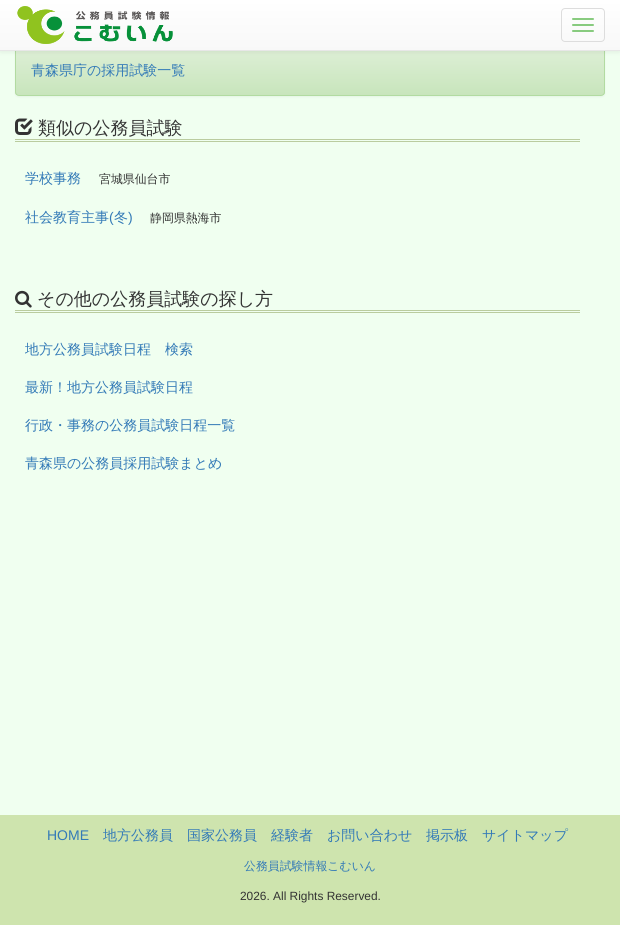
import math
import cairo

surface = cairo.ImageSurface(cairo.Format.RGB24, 620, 925)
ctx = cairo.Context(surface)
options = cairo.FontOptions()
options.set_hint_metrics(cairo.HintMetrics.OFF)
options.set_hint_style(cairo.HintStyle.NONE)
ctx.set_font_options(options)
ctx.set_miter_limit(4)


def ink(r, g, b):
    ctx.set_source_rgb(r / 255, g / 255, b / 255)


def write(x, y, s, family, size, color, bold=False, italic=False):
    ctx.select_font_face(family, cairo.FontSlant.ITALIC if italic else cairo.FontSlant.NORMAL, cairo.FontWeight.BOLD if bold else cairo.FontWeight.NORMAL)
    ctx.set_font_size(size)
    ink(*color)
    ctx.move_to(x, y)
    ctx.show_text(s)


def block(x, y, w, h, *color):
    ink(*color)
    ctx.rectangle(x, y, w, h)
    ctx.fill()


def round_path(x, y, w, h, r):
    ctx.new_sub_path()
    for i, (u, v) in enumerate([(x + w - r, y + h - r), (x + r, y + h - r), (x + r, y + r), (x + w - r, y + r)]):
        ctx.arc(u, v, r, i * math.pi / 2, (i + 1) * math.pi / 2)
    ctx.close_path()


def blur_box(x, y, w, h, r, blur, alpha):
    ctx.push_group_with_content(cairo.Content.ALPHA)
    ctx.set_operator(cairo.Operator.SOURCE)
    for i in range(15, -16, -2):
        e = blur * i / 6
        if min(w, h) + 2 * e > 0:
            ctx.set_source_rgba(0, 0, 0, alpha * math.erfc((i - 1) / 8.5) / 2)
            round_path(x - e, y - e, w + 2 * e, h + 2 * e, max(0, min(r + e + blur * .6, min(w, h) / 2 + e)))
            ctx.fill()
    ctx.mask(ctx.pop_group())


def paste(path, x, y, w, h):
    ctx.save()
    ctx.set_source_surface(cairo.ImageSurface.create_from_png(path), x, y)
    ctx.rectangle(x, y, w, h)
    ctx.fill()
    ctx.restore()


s1 = dict(family="WenQuanYi Zen Hei Medium", size=14, color=(51, 122, 183))
s2 = dict(family="WenQuanYi Zen Hei Medium", size=18, color=(51, 51, 51))
s3 = dict(family="WenQuanYi Zen Hei Medium", size=11.9, color=(51, 51, 51))
s4 = dict(family="Liberation Sans", size=14, color=(51, 122, 183))
s5 = dict(family="WenQuanYi Zen Hei Medium", size=11.9, color=(51, 122, 183))
s6 = dict(family="Liberation Sans", size=11.9, color=(51, 51, 51))

ink(240, 255, 240)
ctx.paint()
ink(0, 0, 0)
blur_box(15, 45, 590, 52, 4, 1, 0.05)
ctx.save()
round_path(15, 44, 590, 52, 4)
ctx.clip()
gradient = cairo.LinearGradient(310, 45, 310, 95)
gradient.add_color_stop_rgba(0, 0.875, 0.941, 0.847, 1)
gradient.add_color_stop_rgba(1, 0.784, 0.898, 0.737, 1)
ctx.set_source(gradient)
ctx.rectangle(15, 51, 590, 44)
ctx.fill()
ctx.restore()
round_path(15.5, 44.5, 589, 51, 3.5)
ink(178, 219, 161)
ctx.set_line_width(1)
ctx.stroke()
ink(0, 0, 0)
blur_box(0, 1, 620, 51, 0, 2.5, 0.07)
gradient = cairo.LinearGradient(310, 0, 310, 50)
gradient.add_color_stop_rgba(0, 1, 1, 1, 1)
gradient.add_color_stop_rgba(1, 0.973, 0.973, 0.973, 1)
ctx.set_source(gradient)
ctx.rectangle(0, 0, 620, 50)
ctx.fill()
block(0, 50, 620, 1, 231, 231, 231)
paste("pic1.png", 17, 6, 156, 38)
round_path(561.5, 8.5, 43, 33, 3.5)
ink(221, 221, 221)
ctx.stroke()
ink(136, 203, 127)
round_path(572, 18, 22, 2, 1)
ctx.fill()
round_path(572, 24, 22, 2, 1)
ctx.fill()
round_path(572, 30, 22, 2, 1)
ctx.fill()
write(31, 75, "青森県庁の採用試験一覧", **s1)
block(15, 139, 565, 1, 186, 204, 159)
block(15, 141, 565, 1, 186, 204, 159)
paste("pic2.png", 15, 118, 18, 17)
write(38, 134, "類似の公務員試験", **s2)
write(25, 183, "学校事務", **s1)
write(99, 183, "宮城県仙台市", **s3)
write(25, 222, "社会教育主事", **s1)
write(109, 222, "(", **s4)
write(114, 222, "冬", **s1)
write(128, 222, ")", **s4)
write(150, 222, "静岡県熱海市", **s3)
block(15, 310, 565, 1, 186, 204, 159)
block(15, 312, 565, 1, 186, 204, 159)
paste("pic3.png", 15, 290, 17, 18)
write(37, 305, "その他の公務員試験の探し方", **s2)
write(25, 354, "地方公務員試験日程　検索", **s1)
write(25, 392, "最新！地方公務員試験日程", **s1)
write(25, 430, "行政・事務の公務員試験日程一覧", **s1)
write(25, 468, "青森県の公務員採用試験まとめ", **s1)
block(0, 815, 620, 110, 206, 228, 174)
write(47, 840, "HOME", **s4)
write(103, 840, "地方公務員", **s1)
write(187, 840, "国家公務員", **s1)
write(271, 840, "経験者", **s1)
write(327, 840, "お問い合わせ", **s1)
write(426, 840, "掲示板", **s1)
write(482, 840, "サイトマップ", **s1)
write(244, 870, "公務員試験情報こむいん", **s5)
write(240, 900, "2026. All Rights Reserved.", **s6)
surface.write_to_png("screenshot.png")
